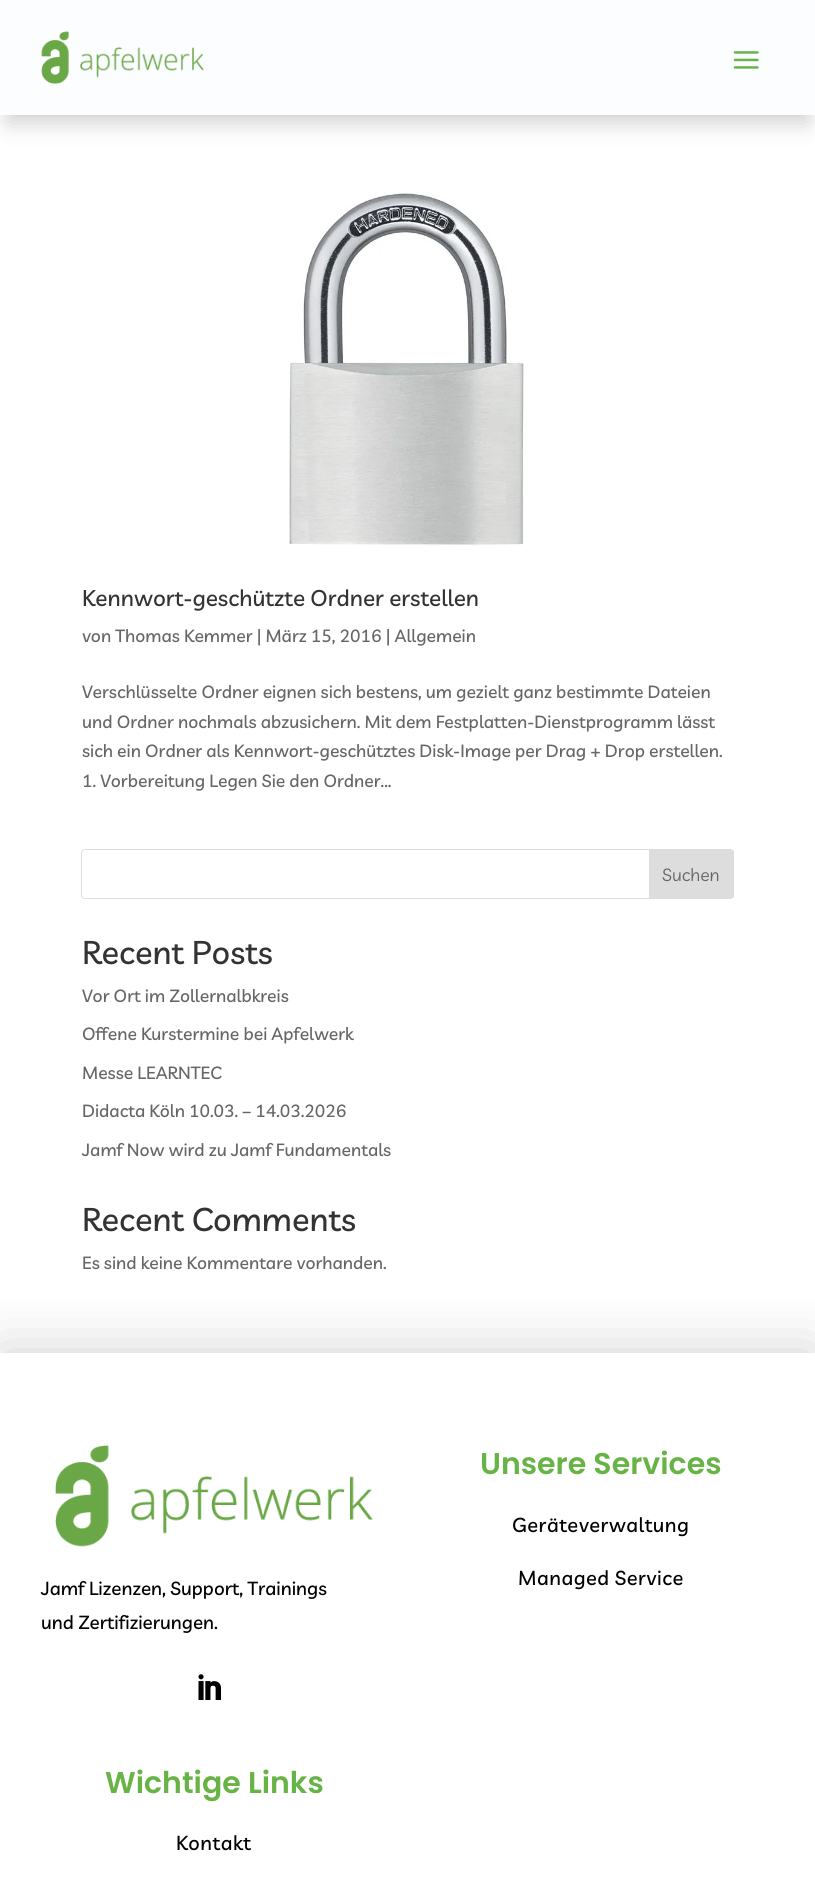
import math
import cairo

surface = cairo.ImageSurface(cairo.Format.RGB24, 815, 1879)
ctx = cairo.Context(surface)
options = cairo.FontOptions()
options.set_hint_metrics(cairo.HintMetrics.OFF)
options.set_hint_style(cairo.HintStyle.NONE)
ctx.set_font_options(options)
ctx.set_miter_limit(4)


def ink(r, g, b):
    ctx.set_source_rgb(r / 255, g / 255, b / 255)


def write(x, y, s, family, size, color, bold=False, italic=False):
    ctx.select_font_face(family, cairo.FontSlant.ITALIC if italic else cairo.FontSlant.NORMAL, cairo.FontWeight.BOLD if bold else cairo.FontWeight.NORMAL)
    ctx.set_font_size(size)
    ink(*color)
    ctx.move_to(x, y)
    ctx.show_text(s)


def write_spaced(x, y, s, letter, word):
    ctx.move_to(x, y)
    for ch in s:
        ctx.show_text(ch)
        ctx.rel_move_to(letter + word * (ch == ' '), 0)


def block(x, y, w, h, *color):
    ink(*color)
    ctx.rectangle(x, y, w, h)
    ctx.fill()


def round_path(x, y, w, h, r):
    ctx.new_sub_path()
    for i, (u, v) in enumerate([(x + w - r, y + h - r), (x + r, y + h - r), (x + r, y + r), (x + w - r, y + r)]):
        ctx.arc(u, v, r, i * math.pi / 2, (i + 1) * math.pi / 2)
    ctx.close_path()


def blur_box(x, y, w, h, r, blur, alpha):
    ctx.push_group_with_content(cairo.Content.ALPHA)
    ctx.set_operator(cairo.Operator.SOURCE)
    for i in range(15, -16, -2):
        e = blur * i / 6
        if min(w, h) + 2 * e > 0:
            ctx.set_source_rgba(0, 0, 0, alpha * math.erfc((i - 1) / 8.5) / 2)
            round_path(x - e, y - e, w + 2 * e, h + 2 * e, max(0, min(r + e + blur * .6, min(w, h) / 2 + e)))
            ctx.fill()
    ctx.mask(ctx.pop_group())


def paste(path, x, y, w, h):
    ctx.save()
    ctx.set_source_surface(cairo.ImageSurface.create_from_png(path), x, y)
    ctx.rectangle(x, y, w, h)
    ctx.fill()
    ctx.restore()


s1 = dict(family="Livvic Medium", size=22.5, color=(51, 51, 51))
s2 = dict(family="Livvic Medium", size=17.5, color=(102, 102, 102))
s3 = dict(family="Livvic", size=17.5, color=(102, 102, 102))
s4 = dict(family="Livvic Medium", size=32.5, color=(51, 51, 51))
s5 = dict(family="Poppins SemiBold", size=30, color=(103, 179, 70))
s6 = dict(family="Livvic Medium", size=18.75, color=(0, 0, 0))

ink(255, 255, 255)
ctx.paint()
ink(162, 162, 162)
blur_box(8, 23, 800, 100, 0, 11, 0.5)
block(0, 0, 815, 115, 252, 253, 255)
paste("pic1.png", 41, 31, 163, 53)
paste("pic2.png", 733, 51, 26, 18)
paste("pic3.png", 289, 192, 235, 354)
write(82, 606, "Kennwort-geschützte Ordner erstellen", **s1)
write(82, 642, "von Thomas Kemmer | März 15, 2016 | Allgemein", **s2)
write(82, 698, "Verschlüsselte Ordner eignen sich bestens, um gezielt ganz bestimmte Dateien", **s2)
write(82, 728, "und Ordner nochmals abzusichern. Mit dem Festplatten-Dienstprogramm lässt", **s2)
write(82, 757, "sich ein Ordner als Kennwort-geschütztes Disk-Image per Drag + Drop erstellen.", **s2)
write(82, 787, "1. Vorbereitung Legen Sie den Ordner...", **s2)
round_path(81.5, 849.5, 652, 49, 3.5)
ink(221, 221, 221)
ctx.set_line_width(1)
ctx.stroke()
ctx.new_path()
ctx.move_to(649.5, 849.5)
ctx.line_to(730, 849.5)
ctx.curve_to(732, 849.5, 733.5, 851, 733.5, 853)
ctx.line_to(733.5, 895)
ctx.curve_to(733.5, 897, 732, 898.5, 730, 898.5)
ctx.line_to(649.5, 898.5)
ctx.close_path()
ctx.fill_preserve()
ctx.stroke()
write(662, 881, "Suchen", **s3)
write(82, 964, "Recent Posts", **s4)
write(82, 1002, "Vor Ort im Zollernalbkreis", **s2)
write(82, 1040, "Offene Kurstermine bei Apfelwerk", **s2)
write(82, 1079, "Messe LEARNTEC", **s2)
write(82, 1117, "Didacta Köln 10.03. – 14.03.2026", **s2)
write(82, 1156, "Jamf Now wird zu Jamf Fundamentals", **s2)
write(82, 1231, "Recent Comments", **s4)
write(82, 1269, "Es sind keine Kommentare vorhanden.", **s2)
ctx.save()
ctx.rectangle(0, 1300, 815, 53)
ctx.clip()
ink(162, 162, 162)
blur_box(0, 1353, 815, 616, 0, 30, 0.5)
ctx.restore()
write(480, 1474, "Unsere Services", **s5)
ctx.select_font_face("Livvic Medium")
ctx.set_font_size(20)
ink(0, 0, 0)
write_spaced(512, 1532, "Geräteverwaltung", 0.5, 0)
write_spaced(518, 1585, "Managed Service", 0.5, 0)
paste("pic4.png", 55, 1445, 318, 102)
write(41, 1595, "Jamf Lizenzen, Support, Trainings", **s6)
write(41, 1629, "und Zertifizierungen.", **s6)
paste("pic5.png", 198, 1674, 24, 26)
write(105, 1793, "Wichtige Links", **s5)
ctx.select_font_face("Livvic Medium")
ctx.set_font_size(20)
ink(0, 0, 0)
write_spaced(176, 1850, "Kontakt", 0.5, 0)
surface.write_to_png("screenshot.png")
